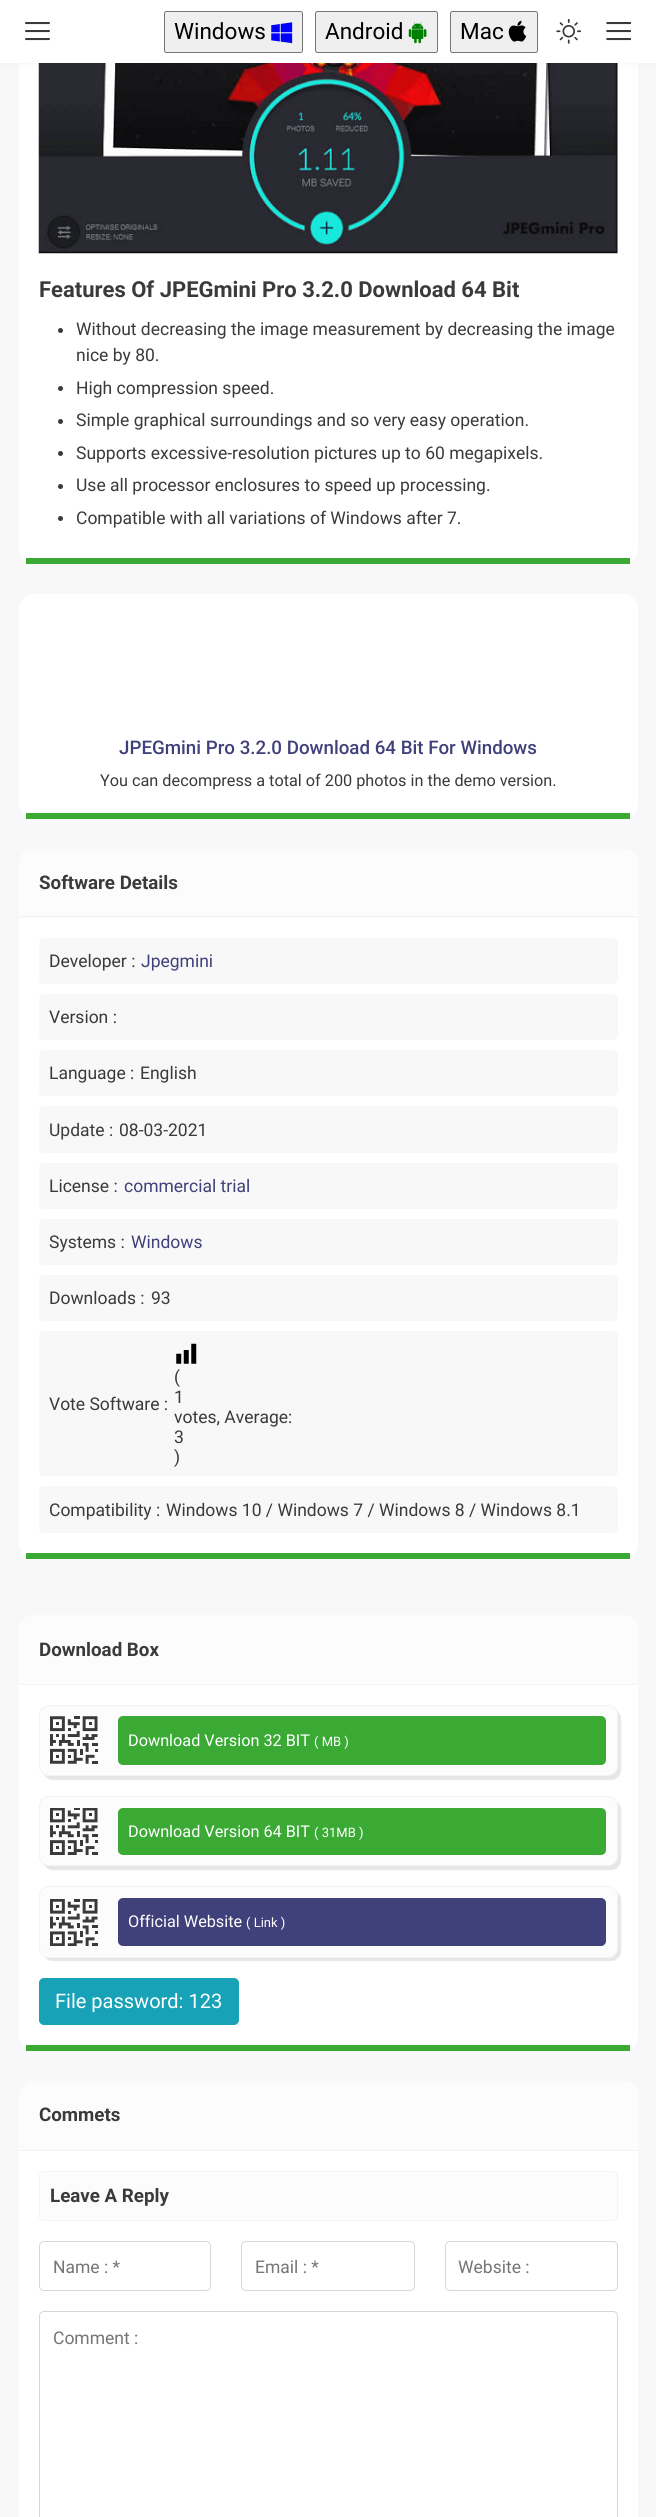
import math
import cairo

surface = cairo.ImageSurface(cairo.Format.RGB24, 656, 2517)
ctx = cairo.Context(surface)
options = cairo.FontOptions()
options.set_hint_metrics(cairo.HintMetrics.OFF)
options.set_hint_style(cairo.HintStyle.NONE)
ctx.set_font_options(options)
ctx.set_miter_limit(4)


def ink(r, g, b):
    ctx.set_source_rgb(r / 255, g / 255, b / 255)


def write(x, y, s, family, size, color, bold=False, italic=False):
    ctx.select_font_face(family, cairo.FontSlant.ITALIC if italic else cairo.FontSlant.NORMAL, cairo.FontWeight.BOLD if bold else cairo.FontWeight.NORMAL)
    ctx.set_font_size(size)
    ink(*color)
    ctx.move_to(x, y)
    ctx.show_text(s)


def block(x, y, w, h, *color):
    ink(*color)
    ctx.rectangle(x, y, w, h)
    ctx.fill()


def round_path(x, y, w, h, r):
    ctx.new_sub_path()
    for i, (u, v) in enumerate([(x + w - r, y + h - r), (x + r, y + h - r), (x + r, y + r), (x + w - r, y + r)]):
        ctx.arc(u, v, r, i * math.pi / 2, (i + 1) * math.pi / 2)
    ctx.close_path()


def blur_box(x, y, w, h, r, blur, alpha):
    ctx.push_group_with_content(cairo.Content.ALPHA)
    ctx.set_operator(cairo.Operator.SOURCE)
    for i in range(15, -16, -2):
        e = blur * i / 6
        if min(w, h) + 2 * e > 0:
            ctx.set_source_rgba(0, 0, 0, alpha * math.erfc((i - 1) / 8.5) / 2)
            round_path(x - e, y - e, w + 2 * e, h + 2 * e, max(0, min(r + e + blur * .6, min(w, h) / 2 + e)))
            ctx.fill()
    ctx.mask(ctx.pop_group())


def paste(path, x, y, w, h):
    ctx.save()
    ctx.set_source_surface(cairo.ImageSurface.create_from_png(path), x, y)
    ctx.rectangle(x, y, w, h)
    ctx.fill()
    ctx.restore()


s1 = dict(family="Roboto", size=22.5, color=(0, 0, 0))
s2 = dict(family="Roboto", size=22, color=(58, 58, 58), bold=True)
s3 = dict(family="Roboto", size=17.5, color=(58, 58, 58))
s4 = dict(family="Roboto Medium", size=18.75, color=(64, 64, 122))
s5 = dict(family="Roboto", size=16.25, color=(58, 58, 58))
s6 = dict(family="Roboto", size=18.75, color=(58, 58, 58), bold=True)
s7 = dict(family="Roboto", size=17.5, color=(64, 64, 122))
s8 = dict(family="Roboto", size=16.25, color=(255, 255, 255))
s9 = dict(family="Roboto", size=13, color=(255, 255, 255))
s10 = dict(family="Roboto", size=20, color=(255, 255, 255))
s11 = dict(family="Roboto", size=17.5, color=(117, 117, 117))

ink(248, 248, 248)
ctx.paint()
ink(255, 255, 255)
round_path(19, -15, 619, 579, 15)
ctx.fill()
paste("pic7.png", 38, 63, 580, 191)
ink(0, 0, 0)
blur_box(0, 1, 656, 63, 0, 4, 0.04)
block(0, 0, 656, 63, 255, 255, 255)
paste("pic1.png", 25, 22, 25, 19)
ink(239, 239, 239)
round_path(164.5, 11.5, 138, 41, 2)
ctx.fill_preserve()
ink(118, 118, 118)
ctx.set_line_width(1)
ctx.stroke()
write(174, 39, "Windows", **s1)
paste("pic2.png", 271, 22, 22, 22)
ink(239, 239, 239)
round_path(315.5, 11.5, 122, 41, 2)
ctx.fill_preserve()
ink(118, 118, 118)
ctx.stroke()
write(325, 39, "Android", **s1)
paste("pic3.png", 408, 22, 19, 22)
ink(239, 239, 239)
round_path(450.5, 11.5, 87, 41, 2)
ctx.fill_preserve()
ink(118, 118, 118)
ctx.stroke()
write(460, 39, "Mac", **s1)
paste("pic4.png", 508, 20, 19, 22)
paste("pic5.png", 556, 19, 25, 25)
paste("pic6.png", 606, 22, 25, 19)
block(26, 558, 604, 6, 58, 170, 53)
write(39, 297, "Features Of JPEGmini Pro 3.2.0 Download 64 Bit", **s2)
ctx.new_path()
ctx.arc(60.5, 330.5, 2.5, 0, 2 * math.pi)
ctx.fill()
write(76, 335, "Without decreasing the image measurement by decreasing the image", **s3)
write(76, 361, "nice by 80.", **s3)
ctx.new_path()
ctx.arc(60.5, 388.5, 2.5, 0, 2 * math.pi)
ctx.fill()
write(76, 394, "High compression speed.", **s3)
ctx.new_path()
ctx.arc(60.5, 421.5, 2.5, 0, 2 * math.pi)
ctx.fill()
write(76, 426, "Simple graphical surroundings and so very easy operation.", **s3)
ctx.new_path()
ctx.arc(60.5, 453.5, 2.5, 0, 2 * math.pi)
ctx.fill()
write(76, 459, "Supports excessive-resolution pictures up to 60 megapixels.", **s3)
ctx.new_path()
ctx.arc(60.5, 486.5, 2.5, 0, 2 * math.pi)
ctx.fill()
write(76, 491, "Use all processor enclosures to speed up processing.", **s3)
ctx.new_path()
ctx.arc(60.5, 518.5, 2.5, 0, 2 * math.pi)
ctx.fill()
write(76, 524, "Compatible with all variations of Windows after 7.", **s3)
ink(255, 255, 255)
round_path(19, 594, 619, 225, 15)
ctx.fill()
block(26, 813, 604, 6, 58, 170, 53)
write(119, 754, "JPEGmini Pro 3.2.0 Download 64 Bit For Windows", **s4)
write(100, 786, "You can decompress a total of 200 photos in the demo version.", **s5)
ink(255, 255, 255)
round_path(19, 849, 619, 710, 15)
ctx.fill()
block(26, 1553, 604, 6, 58, 170, 53)
ink(252, 252, 252)
ctx.new_path()
ctx.move_to(19, 861)
ctx.curve_to(20, 855, 25, 850, 31, 849)
ctx.line_to(625, 849)
ctx.curve_to(632, 850, 638, 856, 638, 864)
ctx.line_to(638, 918)
ctx.line_to(19, 918)
ctx.close_path()
ctx.fill()
block(19, 916, 619, 1, 243, 243, 243)
write(39, 889, "Software Details", **s6)
ink(248, 248, 248)
round_path(39, 938, 579, 46, 5)
ctx.fill()
write(49, 967, "Developer :", **s3)
write(141, 967, "Jpegmini", **s7)
ink(248, 248, 248)
round_path(39, 994, 579, 46, 5)
ctx.fill()
write(49, 1023, "Version :", **s3)
ink(248, 248, 248)
round_path(39, 1050, 579, 46, 5)
ctx.fill()
write(49, 1079, "Language :", **s3)
write(140, 1079, "English", **s3)
ink(248, 248, 248)
round_path(39, 1106, 579, 47, 5)
ctx.fill()
write(49, 1136, "Update :", **s3)
write(119, 1136, "08-03-2021", **s3)
ink(248, 248, 248)
round_path(39, 1163, 579, 46, 5)
ctx.fill()
write(49, 1192, "License :", **s3)
write(124, 1192, "commercial trial", **s7)
ink(248, 248, 248)
round_path(39, 1219, 579, 46, 5)
ctx.fill()
write(49, 1248, "Systems :", **s3)
write(131, 1248, "Windows", **s7)
ink(248, 248, 248)
round_path(39, 1275, 579, 46, 5)
ctx.fill()
write(49, 1304, "Downloads :", **s3)
write(151, 1304, "93", **s3)
ink(248, 248, 248)
round_path(39, 1331, 579, 145, 5)
ctx.fill()
write(49, 1410, "Vote Software :", **s3)
paste("pic8.png", 176, 1343, 21, 21)
write(174, 1383, "(", **s3)
write(174, 1403, "1", **s3)
write(174, 1423, "votes, Average:", **s3)
write(174, 1443, "3", **s3)
write(174, 1463, ")", **s3)
ink(248, 248, 248)
round_path(39, 1486, 579, 47, 5)
ctx.fill()
write(49, 1516, "Compatibility :", **s3)
write(166, 1516, "Windows 10 / Windows 7 / Windows 8 / Windows 8.1", **s3)
ink(255, 255, 255)
round_path(19, 1615, 619, 436, 15)
ctx.fill()
block(26, 2045, 604, 6, 58, 170, 53)
ink(252, 252, 252)
ctx.new_path()
ctx.move_to(34, 1615)
ctx.line_to(623, 1615)
ctx.curve_to(631.5, 1615, 638, 1621.5, 638, 1630)
ctx.line_to(638, 1685)
ctx.line_to(19, 1685)
ctx.line_to(19, 1630)
ctx.curve_to(19, 1621.5, 25.5, 1615, 34, 1615)
ctx.close_path()
ctx.fill()
block(19, 1684, 619, 1, 243, 243, 243)
write(39, 1656, "Download Box", **s6)
ink(0, 0, 0)
blur_box(43, 1709, 578, 71, 10, 0.5, 0.1)
ink(252, 252, 252)
round_path(39.5, 1705.5, 578, 70, 9.5)
ctx.fill_preserve()
ink(243, 243, 243)
ctx.stroke()
paste("pic9.png", 50, 1716, 48, 48)
ink(58, 170, 53)
round_path(118, 1716, 488, 49, 5)
ctx.fill()
write(128, 1746, "Download Version 32 BIT", **s8)
write(314, 1746, "( MB )", **s9)
ink(0, 0, 0)
blur_box(43, 1800, 578, 70, 10, 0.5, 0.1)
ink(252, 252, 252)
round_path(39.5, 1796.5, 578, 69, 9.5)
ctx.fill_preserve()
ink(243, 243, 243)
ctx.stroke()
paste("pic10.png", 50, 1808, 48, 47)
ink(58, 170, 53)
round_path(118, 1808, 488, 47, 5)
ctx.fill()
write(128, 1837, "Download Version 64 BIT", **s8)
write(314, 1837, "( 31MB )", **s9)
ink(0, 0, 0)
blur_box(43, 1890, 578, 71, 10, 0.5, 0.1)
ink(252, 252, 252)
round_path(39.5, 1886.5, 578, 71, 9.5)
ctx.fill_preserve()
ink(243, 243, 243)
ctx.stroke()
paste("pic11.png", 50, 1899, 48, 47)
ink(64, 64, 122)
round_path(118, 1898, 488, 48, 5)
ctx.fill()
write(128, 1927, "Official Website", **s8)
write(246, 1927, "( Link )", **s9)
ink(23, 162, 184)
round_path(39.5, 1978.5, 199, 46, 4.5)
ctx.fill_preserve()
ctx.stroke()
write(55, 2008, "File password: 123", **s10)
round_path(19, 2081, 619, 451, 15)
ctx.fill()
ink(252, 252, 252)
ctx.new_path()
ctx.move_to(34, 2081)
ctx.line_to(623, 2081)
ctx.curve_to(631.5, 2081, 638, 2087.5, 638, 2096)
ctx.line_to(638, 2151)
ctx.line_to(19, 2151)
ctx.line_to(19, 2096)
ctx.curve_to(19, 2087.5, 25.5, 2081, 34, 2081)
ctx.close_path()
ctx.fill()
block(19, 2150, 619, 1, 243, 243, 243)
write(39, 2121, "Commets", **s6)
ink(252, 252, 252)
round_path(39.5, 2171.5, 578, 49, 4.5)
ctx.fill_preserve()
ink(243, 243, 243)
ctx.stroke()
write(50, 2202, "Leave A Reply", **s6)
round_path(39.5, 2241.5, 171, 49, 4.5)
ink(215, 215, 215)
ctx.stroke()
write(53, 2273, "Name : *", **s11)
round_path(241.5, 2241.5, 173, 49, 4.5)
ink(215, 215, 215)
ctx.stroke()
write(255, 2273, "Email : *", **s11)
round_path(445.5, 2241.5, 172, 49, 4.5)
ink(215, 215, 215)
ctx.stroke()
write(458, 2273, "Website :", **s11)
round_path(39.5, 2311.5, 578, 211, 4.5)
ink(215, 215, 215)
ctx.stroke()
write(53, 2344, "Comment :", **s11)
surface.write_to_png("screenshot.png")
